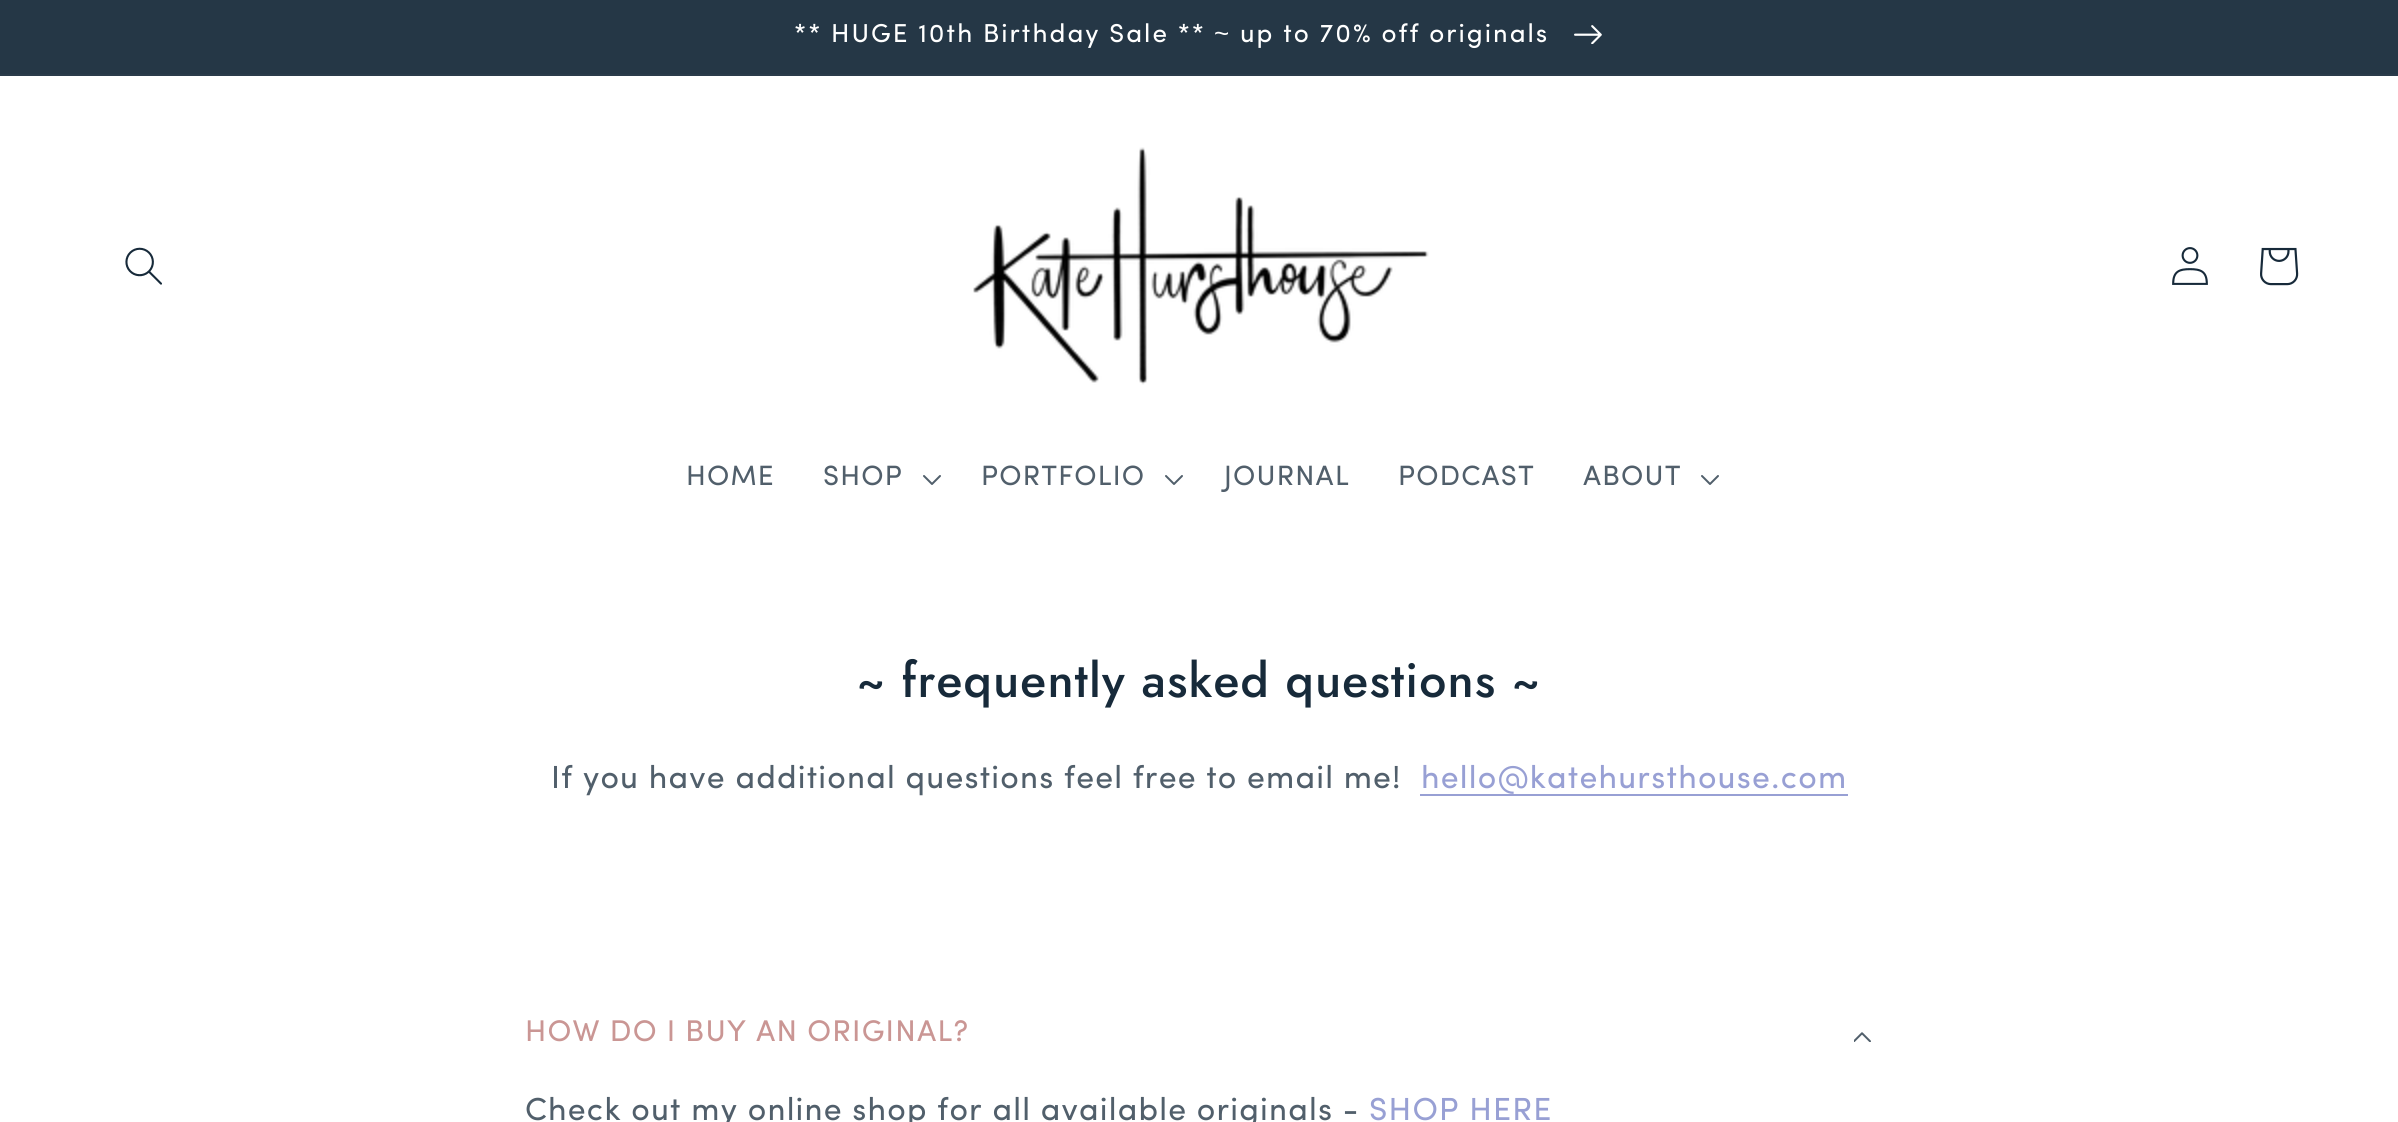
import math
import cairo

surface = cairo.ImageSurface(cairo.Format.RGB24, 2398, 1122)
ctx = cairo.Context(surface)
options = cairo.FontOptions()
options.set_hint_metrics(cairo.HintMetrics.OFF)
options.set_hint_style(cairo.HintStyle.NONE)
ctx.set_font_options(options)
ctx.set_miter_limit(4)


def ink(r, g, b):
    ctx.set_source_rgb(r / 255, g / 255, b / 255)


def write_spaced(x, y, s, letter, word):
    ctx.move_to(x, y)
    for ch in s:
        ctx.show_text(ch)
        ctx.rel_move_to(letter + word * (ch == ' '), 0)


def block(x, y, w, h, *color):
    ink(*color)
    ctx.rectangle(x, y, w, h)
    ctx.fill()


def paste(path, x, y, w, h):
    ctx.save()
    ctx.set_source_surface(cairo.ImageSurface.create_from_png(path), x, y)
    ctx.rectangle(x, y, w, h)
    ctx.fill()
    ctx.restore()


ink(255, 255, 255)
ctx.paint()
block(0, 74, 2398, 2, 42, 59, 74)
block(0, 0, 2398, 74, 37, 55, 70)
ctx.select_font_face("Sofia")
ctx.set_font_size(26)
ink(255, 255, 255)
write_spaced(794, 42, "** HUGE 10th Birthday Sale **", 2, 0)
ctx.select_font_face("Liberation Sans")
write_spaced(1214, 42, "~", 2, 0)
ctx.select_font_face("Sofia")
write_spaced(1240, 42, "up to 70% off originals", 2, 0)
paste("pic1.png", 1574, 25, 28, 19)
paste("pic2.png", 125, 247, 37, 38)
paste("pic3.png", 973, 147, 456, 238)
paste("pic4.png", 2172, 247, 36, 38)
paste("pic5.png", 2260, 247, 39, 39)
ctx.set_font_size(28)
ink(81, 95, 107)
write_spaced(686, 485, "HOME", 1.2, 0)
write_spaced(823, 485, "SHOP", 1.2, 0)
paste("pic6.png", 923, 475, 18, 10)
write_spaced(981, 485, "PORTFOLIO", 1.2, 0)
paste("pic6.png", 1165, 475, 18, 10)
write_spaced(1224, 485, "JOURNAL", 1.2, 0)
write_spaced(1398, 485, "PODCAST", 1.2, 0)
write_spaced(1583, 485, "ABOUT", 1.2, 0)
paste("pic6.png", 1701, 475, 18, 10)
ctx.select_font_face("Jost Medium")
ctx.set_font_size(48)
ink(23, 42, 58)
write_spaced(857, 697, "~ frequently asked questions ~", 1.2, 0)
ctx.select_font_face("Sofia")
ctx.set_font_size(32)
ink(81, 95, 107)
write_spaced(551, 788, "If you have additional questions feel free to email me!", 1.2, 0)
ink(152, 160, 212)
write_spaced(1421, 788, "hello@katehursthouse.com", 1.2, 0)
block(1420, 794, 428, 2, 152, 160, 212)
ctx.set_font_size(30)
ink(202, 150, 148)
write_spaced(525, 1041, "HOW DO I BUY AN ORIGINAL?", 1.2, 0)
paste("pic7.png", 1854, 1032, 17, 10)
ctx.set_font_size(32)
ink(81, 95, 107)
write_spaced(525, 1120, "Check out my online shop for all available originals -", 1.2, 0)
ink(152, 160, 212)
write_spaced(1369, 1120, "SHOP HERE", 1.2, 0)
surface.write_to_png("screenshot.png")
